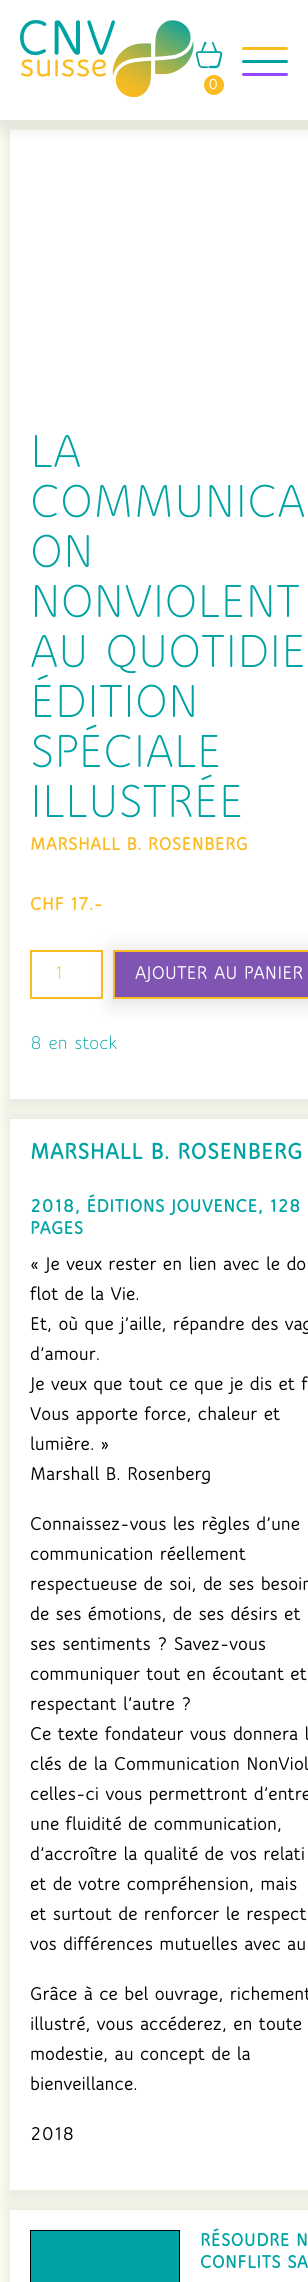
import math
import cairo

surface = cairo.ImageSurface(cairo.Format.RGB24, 308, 2282)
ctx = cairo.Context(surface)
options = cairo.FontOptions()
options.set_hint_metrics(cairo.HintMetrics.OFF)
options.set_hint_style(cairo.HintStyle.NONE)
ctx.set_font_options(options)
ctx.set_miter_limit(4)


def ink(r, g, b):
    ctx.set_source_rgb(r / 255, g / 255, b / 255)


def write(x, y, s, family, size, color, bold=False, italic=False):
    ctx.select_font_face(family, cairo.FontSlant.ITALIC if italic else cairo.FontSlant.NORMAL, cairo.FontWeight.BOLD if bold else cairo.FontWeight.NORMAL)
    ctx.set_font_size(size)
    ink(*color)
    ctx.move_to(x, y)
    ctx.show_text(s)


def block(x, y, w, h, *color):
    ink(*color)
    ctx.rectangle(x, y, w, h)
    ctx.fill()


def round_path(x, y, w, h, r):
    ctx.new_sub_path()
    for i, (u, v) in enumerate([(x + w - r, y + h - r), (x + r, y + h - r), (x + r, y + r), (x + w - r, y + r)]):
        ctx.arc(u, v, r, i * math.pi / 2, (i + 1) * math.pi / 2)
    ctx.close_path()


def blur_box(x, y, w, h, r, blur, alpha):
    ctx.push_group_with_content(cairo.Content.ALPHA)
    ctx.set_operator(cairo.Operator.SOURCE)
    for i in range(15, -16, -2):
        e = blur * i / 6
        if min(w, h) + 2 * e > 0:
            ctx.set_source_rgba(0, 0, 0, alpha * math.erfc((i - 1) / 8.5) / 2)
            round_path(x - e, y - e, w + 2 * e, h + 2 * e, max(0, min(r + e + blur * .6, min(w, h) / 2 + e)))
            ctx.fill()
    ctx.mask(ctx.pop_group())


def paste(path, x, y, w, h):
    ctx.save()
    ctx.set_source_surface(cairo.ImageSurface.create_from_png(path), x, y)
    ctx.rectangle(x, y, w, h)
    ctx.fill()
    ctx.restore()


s1 = dict(family="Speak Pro", size=16, color=(255, 255, 255), bold=True)
s2 = dict(family="Speak Pro", size=50, color=(0, 162, 163))
s3 = dict(family="Speak Pro Black", size=20, color=(251, 187, 33))
s4 = dict(family="Speak Pro", size=20, color=(251, 187, 33))
s5 = dict(family="Speak Pro", size=20, color=(255, 255, 255), bold=True)
s6 = dict(family="Speak Pro", size=20, color=(0, 162, 163))
s7 = dict(family="Speak Pro Black", size=25, color=(0, 162, 163))
s8 = dict(family="Speak Pro Black", size=20, color=(0, 162, 163))
s9 = dict(family="Speak Pro", size=20, color=(0, 0, 0), bold=True)

ink(255, 255, 244)
ctx.paint()
ink(0, 0, 0)
blur_box(7, 127, 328, 979, 0, 9, 0.1)
block(10, 130, 298, 969, 255, 255, 255)
ink(0, 0, 0)
blur_box(-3, -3, 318, 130, 0, 9, 0.1)
block(0, 0, 308, 120, 255, 255, 255)
paste("pic1.png", 20, 20, 174, 77)
ink(251, 187, 33)
round_path(242, 47, 46, 3, 1.5)
ctx.fill()
ink(0, 162, 163)
round_path(242, 60, 46, 3, 1.5)
ctx.fill()
ink(151, 71, 255)
round_path(242, 73, 46, 3, 1.5)
ctx.fill()
paste("pic2.png", 195, 41, 28, 28)
ink(251, 187, 33)
ctx.arc(214, 85, 10, 0, 2 * math.pi)
ctx.fill()
write(208, 89, "0", **s1)
write(30, 467, "LA", **s2)
write(30, 517, "COMMUNICA", **s2)
write(30, 567, "ON", **s2)
write(30, 617, "NONVIOLENT", **s2)
write(30, 667, "AU QUOTIDIE", **s2)
write(30, 717, "ÉDITION", **s2)
write(30, 767, "SPÉCIALE", **s2)
write(30, 817, "ILLUSTRÉE", **s2)
write(30, 850, "MARSHALL B. ROSENBERG", **s3)
write(30, 910, "CHF 17.-", **s3)
ctx.rectangle(31, 951, 71, 47)
ctx.stroke()
write(55, 979, "1", **s4)
ink(0, 0, 0)
blur_box(110, 947, 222, 59, 0, 9, 0.1)
ink(127, 84, 179)
ctx.rectangle(114, 951, 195, 47)
ctx.fill_preserve()
ink(251, 187, 33)
ctx.stroke()
write(135, 979, "AJOUTER AU PANIER", **s5)
write(30, 1049, "8 en stock", **s6)
ink(0, 0, 0)
blur_box(7, 1116, 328, 1081, 0, 9, 0.1)
block(10, 1119, 298, 1071, 255, 255, 255)
write(30, 1159, "MARSHALL B. ROSENBERG", **s7)
write(30, 1212, "2018, ÉDITIONS JOUVENCE, 128", **s8)
write(30, 1234, "PAGES", **s8)
write(30, 1270, "« Je veux rester en lien avec le do", **s9)
write(30, 1300, "flot de la Vie.", **s9)
write(30, 1330, "Et, où que j’aille, répandre des vag", **s9)
write(30, 1360, "d’amour.", **s9)
write(30, 1390, "Je veux que tout ce que je dis et f", **s9)
write(30, 1420, "Vous apporte force, chaleur et", **s9)
write(30, 1450, "lumière. »", **s9)
write(30, 1480, "Marshall B. Rosenberg", **s9)
write(30, 1530, "Connaissez-vous les règles d’une", **s9)
write(30, 1560, "communication réellement", **s9)
write(30, 1590, "respectueuse de soi, de ses besoin", **s9)
write(30, 1620, "de ses émotions, de ses désirs et", **s9)
write(30, 1650, "ses sentiments ? Savez-vous", **s9)
write(30, 1680, "communiquer tout en écoutant et", **s9)
write(30, 1710, "respectant l’autre ?", **s9)
write(30, 1740, "Ce texte fondateur vous donnera l", **s9)
write(30, 1770, "clés de la Communication NonViol", **s9)
write(30, 1800, "celles-ci vous permettront d’entre", **s9)
write(30, 1830, "une fluidité de communication,", **s9)
write(30, 1860, "d’accroître la qualité de vos relati", **s9)
write(30, 1890, "et de votre compréhension, mais", **s9)
write(30, 1920, "et surtout de renforcer le respect", **s9)
write(30, 1950, "vos différences mutuelles avec au", **s9)
write(30, 2000, "Grâce à ce bel ouvrage, richement", **s9)
write(30, 2030, "illustré, vous accéderez, en toute", **s9)
write(30, 2060, "modestie, au concept de la", **s9)
write(30, 2090, "bienveillance.", **s9)
write(30, 2140, "2018", **s9)
ink(0, 0, 0)
blur_box(7, 2207, 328, 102, 0, 9, 0.1)
block(10, 2210, 298, 72, 255, 255, 255)
ink(0, 162, 163)
ctx.rectangle(30.5, 2230.5, 149, 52)
ctx.fill_preserve()
ink(0, 0, 0)
ctx.set_line_width(1)
ctx.stroke()
write(200, 2246, "RÉSOUDRE N", **s8)
write(200, 2268, "CONFLITS SA", **s8)
surface.write_to_png("screenshot.png")
